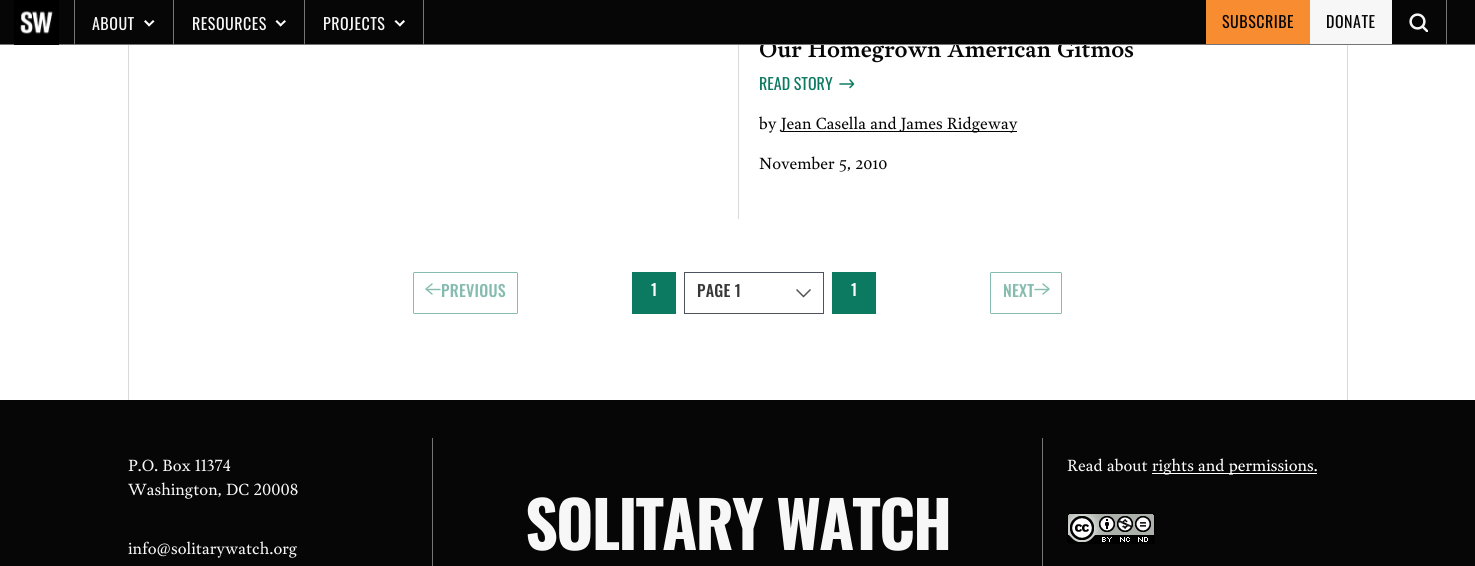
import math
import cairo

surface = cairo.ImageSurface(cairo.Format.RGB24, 1475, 566)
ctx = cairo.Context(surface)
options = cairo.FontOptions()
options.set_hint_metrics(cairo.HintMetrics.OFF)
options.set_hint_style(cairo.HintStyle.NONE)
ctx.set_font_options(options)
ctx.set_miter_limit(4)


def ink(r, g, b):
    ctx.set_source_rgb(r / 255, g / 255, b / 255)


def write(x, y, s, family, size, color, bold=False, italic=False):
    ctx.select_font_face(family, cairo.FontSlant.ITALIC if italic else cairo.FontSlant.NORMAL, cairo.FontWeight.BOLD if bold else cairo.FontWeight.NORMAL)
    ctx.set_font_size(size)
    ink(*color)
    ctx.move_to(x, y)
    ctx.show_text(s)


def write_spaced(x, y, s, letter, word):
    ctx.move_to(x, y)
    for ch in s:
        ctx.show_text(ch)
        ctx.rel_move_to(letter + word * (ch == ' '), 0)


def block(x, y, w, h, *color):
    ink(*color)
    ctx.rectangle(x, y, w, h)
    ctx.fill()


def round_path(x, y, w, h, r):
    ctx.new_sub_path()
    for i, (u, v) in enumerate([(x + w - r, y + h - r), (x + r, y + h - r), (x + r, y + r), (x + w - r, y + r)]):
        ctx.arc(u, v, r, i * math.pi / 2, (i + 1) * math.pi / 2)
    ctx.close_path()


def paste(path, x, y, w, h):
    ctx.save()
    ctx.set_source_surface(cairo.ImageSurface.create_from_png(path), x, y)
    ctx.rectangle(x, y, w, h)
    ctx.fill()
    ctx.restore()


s1 = dict(family="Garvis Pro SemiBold", size=22.6, color=(7, 6, 6))
s2 = dict(family="Oswald", size=16, color=(12, 121, 97))
s3 = dict(family="Garvis Pro", size=16, color=(7, 6, 6))
s4 = dict(family="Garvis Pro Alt", size=16, color=(248, 247, 247))
s5 = dict(family="Garvis Pro", size=16, color=(248, 247, 247))
s6 = dict(family="Garvis Pro", size=16, color=(255, 255, 255))

ink(255, 255, 255)
ctx.paint()
block(0, 0, 1475, 44, 7, 6, 6)
write(759, 57, "Our Homegrown American Gitmos", **s1)
block(0, 44, 1475, 1, 116, 116, 116)
paste("pic1.png", 14, 0, 45, 45)
block(74, 0, 1, 44, 116, 116, 116)
ctx.select_font_face("Oswald")
ctx.set_font_size(16)
ink(248, 247, 247)
write_spaced(92, 30, "ABOUT", 0.5, 0)
ink(255, 255, 255)
ctx.new_path()
ctx.move_to(148, 25)
ctx.line_to(153, 20)
ctx.line_to(154.5, 21.5)
ctx.line_to(149, 26.5)
ctx.close_path()
ctx.fill()
ctx.new_path()
ctx.move_to(144, 21.5)
ctx.line_to(145.5, 20)
ctx.line_to(150.5, 25)
ctx.line_to(149, 26.5)
ctx.close_path()
ctx.fill()
block(173, 0, 1, 44, 116, 116, 116)
ink(248, 247, 247)
write_spaced(192, 30, "RESOURCES", 0.5, 0)
ink(255, 255, 255)
ctx.new_path()
ctx.move_to(279.5, 25)
ctx.line_to(284.5, 20)
ctx.line_to(286, 21.5)
ctx.line_to(280.5, 26.5)
ctx.close_path()
ctx.fill()
ctx.new_path()
ctx.move_to(275.5, 21.5)
ctx.line_to(277, 20)
ctx.line_to(282, 25)
ctx.line_to(280.5, 26.5)
ctx.close_path()
ctx.fill()
block(423, 0, 1, 44, 116, 116, 116)
block(304, 0, 1, 44, 116, 116, 116)
ink(248, 247, 247)
write_spaced(323, 30, "PROJECTS", 0.5, 0)
ink(255, 255, 255)
ctx.new_path()
ctx.move_to(398.5, 25)
ctx.line_to(403.5, 20)
ctx.line_to(405, 21.5)
ctx.line_to(400, 26.5)
ctx.close_path()
ctx.fill()
ctx.new_path()
ctx.move_to(394.5, 21.5)
ctx.line_to(396, 20)
ctx.line_to(401, 25)
ctx.line_to(400, 26.5)
ctx.close_path()
ctx.fill()
block(1206, 0, 104, 44, 248, 140, 48)
ink(7, 6, 6)
write_spaced(1222, 28, "SUBSCRIBE", 0.5, 0)
block(1310, 0, 82, 44, 248, 247, 247)
ink(7, 6, 6)
write_spaced(1326, 28, "DONATE", 0.5, 0)
block(1446, 0, 1, 44, 116, 116, 116)
paste("pic2.png", 1409, 13, 19, 19)
block(1347, 45, 1, 355, 217, 217, 217)
block(128, 45, 1, 355, 217, 217, 217)
block(738, 45, 1, 174, 217, 217, 217)
write(759, 90, "READ STORY", **s2)
ctx.new_path()
ctx.move_to(840, 84)
ctx.line_to(853.5, 84)
ctx.move_to(850, 80)
ctx.line_to(853.5, 84)
ctx.line_to(850, 87.5)
ctx.set_line_width(1.5)
ctx.set_line_cap(cairo.LineCap.ROUND)
ctx.set_line_join(cairo.LineJoin.ROUND)
ctx.stroke()
write(759, 129, "by", **s3)
block(781, 131, 236, 1, 7, 6, 6)
write(781, 129, "Jean Casella and James Ridgeway", **s3)
write(759, 169, "November 5, 2010", **s3)
ctx.rectangle(413.5, 272.5, 104, 41)
ink(134, 188, 176)
ctx.set_line_width(1)
ctx.set_line_cap(cairo.LineCap.BUTT)
ctx.set_line_join(cairo.LineJoin.MITER)
ctx.stroke()
ctx.new_path()
ctx.move_to(432, 294)
ctx.line_to(426, 289)
ctx.line_to(432, 284)
ctx.set_line_width(1.4)
ctx.set_line_cap(cairo.LineCap.ROUND)
ctx.set_line_join(cairo.LineJoin.ROUND)
ctx.stroke()
ctx.new_path()
ctx.move_to(426.5, 289.5)
ctx.line_to(440, 289.5)
ctx.set_line_join(cairo.LineJoin.MITER)
ctx.stroke()
round_path(403, 262, 125, 62, 31)
ink(255, 255, 255)
ctx.set_line_width(4)
ctx.set_line_cap(cairo.LineCap.BUTT)
ctx.stroke()
ctx.select_font_face("Oswald Medium")
ink(134, 188, 176)
write_spaced(441, 297, "PREVIOUS", 0.25, 0)
block(632, 272, 44, 42, 12, 121, 97)
ink(255, 255, 255)
write_spaced(651, 296, "1", 0.25, 0)
ctx.rectangle(684.5, 272.5, 139, 41)
ink(77, 83, 93)
ctx.set_line_width(1)
ctx.stroke()
ink(56, 55, 55)
write_spaced(697, 297, "PAGE 1", 0.25, 0)
ctx.new_path()
ctx.move_to(796.5, 289.5)
ctx.line_to(803.5, 296.5)
ctx.line_to(810.5, 289.5)
ink(85, 85, 85)
ctx.set_line_width(1.5)
ctx.stroke()
block(832, 272, 44, 42, 12, 121, 97)
ink(255, 255, 255)
write_spaced(851, 296, "1", 0.25, 0)
ctx.rectangle(990.5, 272.5, 71, 41)
ink(134, 188, 176)
ctx.set_line_width(1)
ctx.stroke()
ctx.new_path()
ctx.move_to(1043, 294)
ctx.line_to(1049, 289)
ctx.line_to(1043, 284)
ctx.set_line_width(1.4)
ctx.set_line_cap(cairo.LineCap.ROUND)
ctx.set_line_join(cairo.LineJoin.ROUND)
ctx.stroke()
ctx.new_path()
ctx.move_to(1048.5, 289.5)
ctx.line_to(1035, 289.5)
ctx.set_line_join(cairo.LineJoin.MITER)
ctx.stroke()
round_path(980, 262, 92, 62, 31)
ink(255, 255, 255)
ctx.set_line_width(4)
ctx.set_line_cap(cairo.LineCap.BUTT)
ctx.stroke()
ink(134, 188, 176)
write_spaced(1003, 297, "NEXT", 0.25, 0)
block(0, 400, 1475, 166, 7, 6, 6)
block(432, 438, 1, 128, 116, 116, 116)
write(128, 471, "P.O. Box 11374", **s4)
write(128, 495, "Washington, DC 20008", **s4)
write(128, 554, "info@solitarywatch.org", **s5)
ctx.select_font_face("Oswald", cairo.FontSlant.NORMAL, cairo.FontWeight.BOLD)
ctx.set_font_size(64.25)
write_spaced(525, 550, "SOLITARY WATCH", -2, 0)
block(1042, 438, 1, 128, 116, 116, 116)
write(1067, 471, "Read about", **s5)
block(1152, 473, 165, 1, 255, 255, 255)
write(1152, 471, "rights and permissions.", **s6)
paste("pic3.png", 1067, 513, 88, 31)
surface.write_to_png("screenshot.png")
